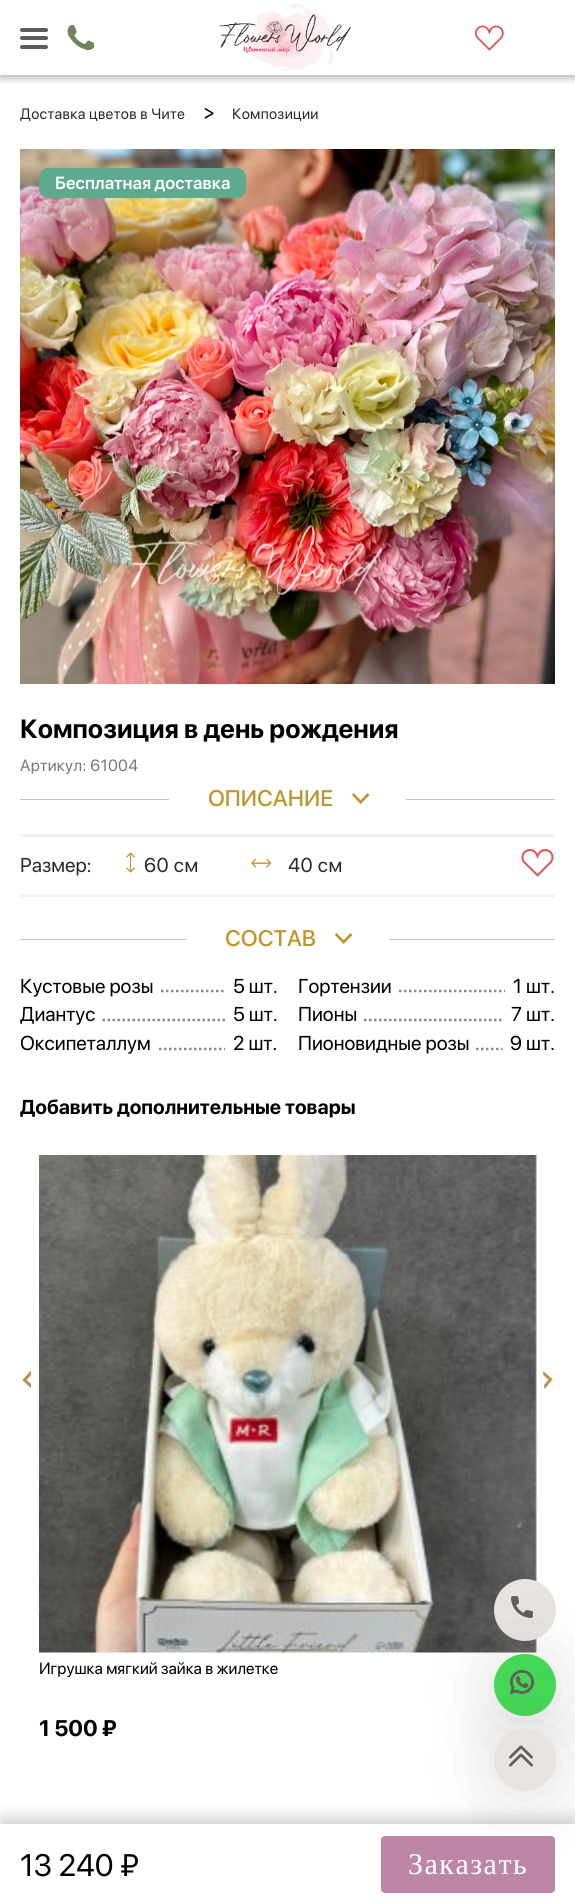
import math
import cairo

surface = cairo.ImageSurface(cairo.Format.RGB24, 575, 1904)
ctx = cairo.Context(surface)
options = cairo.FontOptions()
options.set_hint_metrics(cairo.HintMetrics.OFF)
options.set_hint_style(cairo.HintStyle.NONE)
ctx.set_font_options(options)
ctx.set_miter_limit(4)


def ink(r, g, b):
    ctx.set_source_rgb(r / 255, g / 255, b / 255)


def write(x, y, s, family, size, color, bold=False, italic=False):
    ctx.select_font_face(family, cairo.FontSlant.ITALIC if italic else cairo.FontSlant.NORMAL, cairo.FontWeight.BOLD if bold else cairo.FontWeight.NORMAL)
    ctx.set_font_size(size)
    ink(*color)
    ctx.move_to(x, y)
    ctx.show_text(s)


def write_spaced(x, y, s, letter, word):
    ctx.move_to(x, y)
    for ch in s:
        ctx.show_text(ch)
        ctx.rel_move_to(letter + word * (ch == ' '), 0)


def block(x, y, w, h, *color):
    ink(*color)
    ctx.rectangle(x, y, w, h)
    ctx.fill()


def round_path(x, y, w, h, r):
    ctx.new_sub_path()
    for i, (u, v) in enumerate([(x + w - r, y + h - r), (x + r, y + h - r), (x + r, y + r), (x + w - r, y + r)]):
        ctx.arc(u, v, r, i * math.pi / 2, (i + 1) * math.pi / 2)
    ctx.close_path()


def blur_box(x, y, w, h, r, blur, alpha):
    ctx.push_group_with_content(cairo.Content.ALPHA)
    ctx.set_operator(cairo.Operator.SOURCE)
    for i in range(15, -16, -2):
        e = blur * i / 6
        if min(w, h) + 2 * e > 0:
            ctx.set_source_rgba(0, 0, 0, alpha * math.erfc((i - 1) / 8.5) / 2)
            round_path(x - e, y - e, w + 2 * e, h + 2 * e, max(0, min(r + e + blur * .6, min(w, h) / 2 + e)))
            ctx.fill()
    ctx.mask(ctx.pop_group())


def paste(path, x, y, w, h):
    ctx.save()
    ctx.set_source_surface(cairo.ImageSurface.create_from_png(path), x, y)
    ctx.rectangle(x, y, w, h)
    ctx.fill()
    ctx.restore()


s1 = dict(family="SF Pro Display", size=20, color=(0, 0, 0))
s2 = dict(family="SF Pro Display SemiBold", size=17.5, color=(255, 255, 255))
s3 = dict(family="SF Pro Display", size=26.25, color=(0, 0, 0), bold=True)
s4 = dict(family="SF Pro Display Medium", size=22.5, color=(192, 150, 42))
s5 = dict(family="SF Pro Display", size=20, color=(39, 44, 38))
s6 = dict(family="SF Pro Display", size=20, color=(0, 0, 0), bold=True)
s7 = dict(family="SF Pro Display", size=16.25, color=(0, 0, 0))
s8 = dict(family="SF Pro Display", size=22.5, color=(0, 0, 0), bold=True)
s9 = dict(family="SF Pro Display", size=31, color=(0, 0, 0))

ink(255, 255, 255)
ctx.paint()
ctx.save()
ctx.rectangle(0, 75, 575, 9)
ctx.clip()
ink(0, 0, 0)
blur_box(0, 3, 575, 75, 0, 4, 0.3)
ctx.restore()
ink(92, 92, 92)
round_path(20, 28, 28, 4, 2)
ctx.fill()
round_path(20, 36, 28, 4, 2)
ctx.fill()
round_path(20, 45, 28, 4, 2)
ctx.fill()
paste("pic1.png", 67, 25, 27, 25)
paste("pic2.png", 219, 4, 132, 67)
paste("pic3.png", 475, 25, 29, 26)
ctx.select_font_face("SF Pro Display")
ctx.set_font_size(15)
ink(39, 44, 38)
write_spaced(20, 119, "Доставка цветов в Чите", 0.3, 0)
write(203, 119, ">", **s1)
ctx.set_font_size(15)
ink(39, 44, 38)
write_spaced(232, 119, "Композиции", 0.3, 0)
paste("pic4.png", 20, 149, 535, 535)
ink(94, 170, 143)
round_path(39, 168, 207, 30, 9)
ctx.fill()
write(55, 189, "Бесплатная доставка", **s2)
write(20, 738, "Композиция в день рождения", **s3)
ctx.select_font_face("SF Pro Display")
ctx.set_font_size(16.25)
ink(117, 121, 116)
write_spaced(20, 771, "Артикул: 61004", 0.3, 0)
block(20, 799, 535, 1, 196, 196, 196)
block(169, 799, 237, 1, 255, 255, 255)
write(208, 806, "ОПИСАНИЕ", **s4)
ctx.new_path()
ctx.move_to(367.5, 793)
ctx.line_to(369.5, 795)
ctx.line_to(360.5, 804)
ctx.line_to(359, 802)
ctx.close_path()
ctx.fill()
ctx.new_path()
ctx.move_to(353.5, 793)
ctx.line_to(362.5, 802)
ctx.line_to(360.5, 804)
ctx.line_to(352, 795)
ctx.close_path()
ctx.fill()
block(20, 834, 535, 3, 242, 242, 242)
block(20, 894, 535, 3, 242, 242, 242)
write(20, 872, "Размер:", **s5)
paste("pic5.png", 126, 852, 9, 21)
write_spaced(144, 872, "60 см", 0.5, 0)
paste("pic6.png", 251, 858, 21, 10)
write_spaced(288, 872, "40 см", 0.5, 0)
paste("pic7.png", 521, 849, 33, 28)
block(20, 939, 535, 1, 196, 196, 196)
block(186, 939, 203, 1, 255, 255, 255)
write(225, 946, "СОСТАВ", **s4)
ctx.new_path()
ctx.move_to(350.5, 933)
ctx.line_to(352.5, 935)
ctx.line_to(343.5, 944)
ctx.line_to(342, 942)
ctx.close_path()
ctx.fill()
ctx.new_path()
ctx.move_to(336.5, 933)
ctx.line_to(345.5, 942)
ctx.line_to(343.5, 944)
ctx.line_to(335, 935)
ctx.close_path()
ctx.fill()
write(20, 993, "Кустовые розы", **s1)
ctx.new_path()
ctx.move_to(161, 991)
ctx.line_to(225, 991)
ink(137, 140, 136)
ctx.set_line_width(2.5)
ctx.set_dash([2.5, 2.5])
ctx.stroke()
write(233, 993, "5 шт.", **s1)
write(298, 993, "Гортензии", **s1)
ctx.new_path()
ctx.move_to(399, 991)
ctx.line_to(505, 991)
ink(137, 140, 136)
ctx.stroke()
write(513, 993, "1 шт.", **s1)
write(20, 1021, "Диантус", **s1)
ctx.new_path()
ctx.move_to(102.5, 1020)
ctx.line_to(225, 1020)
ink(137, 140, 136)
ctx.stroke()
write(233, 1021, "5 шт.", **s1)
write(298, 1021, "Пионы", **s1)
ctx.new_path()
ctx.move_to(364, 1020)
ctx.line_to(504, 1020)
ink(137, 140, 136)
ctx.stroke()
write(511, 1021, "7 шт.", **s1)
write(20, 1050, "Оксипеталлум", **s1)
ctx.new_path()
ctx.move_to(159, 1049)
ctx.line_to(225, 1049)
ink(137, 140, 136)
ctx.stroke()
write(233, 1050, "2 шт.", **s1)
write(298, 1050, "Пионовидные розы", **s1)
ctx.new_path()
ctx.move_to(476, 1049)
ctx.line_to(502.5, 1049)
ink(137, 140, 136)
ctx.stroke()
write(510, 1050, "9 шт.", **s1)
write(20, 1114, "Добавить дополнительные товары", **s6)
ctx.save()
ctx.rectangle(21, 1370, 10, 19)
ctx.clip()
ctx.new_path()
ctx.move_to(32, 1371.5)
ctx.line_to(24.5, 1380)
ctx.line_to(32, 1387)
ink(184, 147, 89)
ctx.set_line_width(3.1)
ctx.set_dash([])
ctx.stroke()
ctx.restore()
ctx.save()
ctx.new_path()
ctx.move_to(554.5, 1388.5)
ctx.line_to(544.5, 1389.5)
ctx.line_to(543, 1370.5)
ctx.line_to(553, 1370)
ctx.close_path()
ctx.clip()
ctx.new_path()
ctx.move_to(543.5, 1388)
ctx.line_to(550.5, 1379.5)
ctx.line_to(542.5, 1372.5)
ink(184, 147, 89)
ctx.set_line_width(3.1)
ctx.set_dash([])
ctx.stroke()
ctx.restore()
paste("pic8.png", 39, 1155, 498, 498)
write(39, 1674, "Игрушка мягкий зайка в жилетке", **s7)
write(39, 1736, "1 500 ₽", **s8)
ink(0, 0, 0)
blur_box(1, 1818, 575, 81, 0, 8, 0.2)
block(0, 1824, 575, 80, 255, 255, 255)
write(20, 1876, "13 240 ₽", **s9)
ink(189, 134, 164)
round_path(381, 1836, 174, 57, 4)
ctx.fill()
ctx.select_font_face("Liberation Serif")
ctx.set_font_size(30)
ink(255, 255, 255)
write_spaced(408, 1874, "Заказать", 1.5, 0)
ink(231, 228, 224)
ctx.new_path()
ctx.arc(525, 1610, 31, 0, 2 * math.pi)
ctx.fill()
paste("pic10.png", 511, 1596, 22, 22)
ink(133, 133, 133)
blur_box(494, 1659, 62, 62, 31, 34.5, 0.25)
ink(67, 216, 84)
ctx.arc(525, 1685, 31, 0, 2 * math.pi)
ctx.fill()
paste("pic9.png", 510, 1670, 24, 25)
ink(133, 133, 133)
blur_box(494, 1734, 62, 62, 31, 34.5, 0.25)
ink(231, 228, 224)
ctx.arc(525, 1760, 31, 0, 2 * math.pi)
ctx.fill()
paste("pic11.png", 509, 1745, 24, 22)
surface.write_to_png("screenshot.png")
